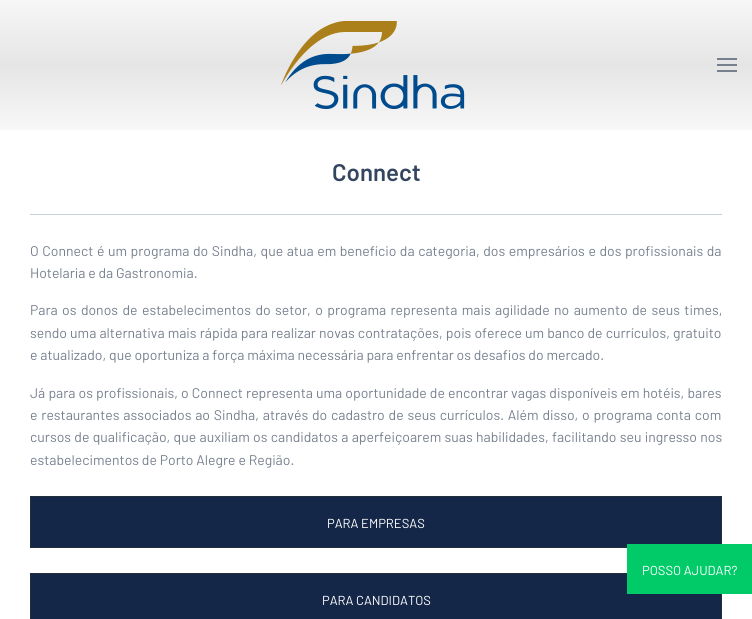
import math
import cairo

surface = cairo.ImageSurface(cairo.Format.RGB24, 752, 619)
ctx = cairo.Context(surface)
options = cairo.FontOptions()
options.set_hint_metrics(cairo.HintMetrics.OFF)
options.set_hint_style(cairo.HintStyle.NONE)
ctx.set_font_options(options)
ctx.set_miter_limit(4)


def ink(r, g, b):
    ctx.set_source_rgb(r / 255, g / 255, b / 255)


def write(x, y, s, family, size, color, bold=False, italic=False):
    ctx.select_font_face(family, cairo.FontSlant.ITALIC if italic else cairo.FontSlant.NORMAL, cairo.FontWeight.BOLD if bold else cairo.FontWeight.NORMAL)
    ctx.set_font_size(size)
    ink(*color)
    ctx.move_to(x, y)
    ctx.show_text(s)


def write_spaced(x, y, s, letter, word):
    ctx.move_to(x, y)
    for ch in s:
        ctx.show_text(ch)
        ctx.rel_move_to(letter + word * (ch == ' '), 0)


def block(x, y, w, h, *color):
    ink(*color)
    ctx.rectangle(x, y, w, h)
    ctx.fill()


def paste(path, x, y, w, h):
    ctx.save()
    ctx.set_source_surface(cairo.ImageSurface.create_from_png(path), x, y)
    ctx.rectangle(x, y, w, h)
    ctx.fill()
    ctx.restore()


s1 = dict(family="Barlow SemiBold", size=24, color=(51, 69, 95))
s2 = dict(family="Barlow", size=14, color=(119, 128, 142))
s3 = dict(family="Barlow", size=13, color=(255, 255, 255))

ink(255, 255, 255)
ctx.paint()
gradient = cairo.LinearGradient(376, 0, 376, 130)
gradient.add_color_stop_rgba(0, 0.969, 0.969, 0.969, 1)
gradient.add_color_stop_rgba(0.5, 0.898, 0.898, 0.898, 1)
gradient.add_color_stop_rgba(1, 0.969, 0.969, 0.969, 1)
ctx.set_source(gradient)
ctx.rectangle(0, 0, 752, 130)
ctx.fill()
paste("pic1.png", 281, 21, 184, 88)
block(717, 58, 20, 2, 119, 128, 142)
block(717, 64, 20, 2, 119, 128, 142)
block(717, 70, 20, 2, 119, 128, 142)
write(332, 181, "Connect", **s1)
block(30, 214, 692, 1, 201, 209, 221)
ctx.select_font_face("Barlow")
ctx.set_font_size(14)
ink(119, 128, 142)
write_spaced(30, 256, "O Connect é um programa do Sindha, que atua em benefício da categoria, dos empresários e dos profissionais da", 0, 0.75)
write(30, 278, "Hotelaria e da Gastronomia.", **s2)
write_spaced(30, 315, "Para os donos de estabelecimentos do setor, o programa representa mais agilidade no aumento de seus times,", 0, 1.6)
write_spaced(30, 338, "sendo uma alternativa mais rápida para realizar novas contratações, pois oferece um banco de currículos, gratuito", 0, 0.3)
write(30, 360, "e atualizado, que oportuniza a força máxima necessária para enfrentar os desafios do mercado.", **s2)
write_spaced(30, 398, "Já para os profissionais, o Connect representa uma oportunidade de encontrar vagas disponíveis em hotéis, bares", 0, 0.3)
write_spaced(30, 420, "e restaurantes associados ao Sindha, através do cadastro de seus currículos. Além disso, o programa conta com", 0, 1)
write_spaced(30, 442, "cursos de qualificação, que auxiliam os candidatos a aperfeiçoarem suas habilidades, facilitando seu ingresso nos", 0, 0.5)
write(30, 465, "estabelecimentos de Porto Alegre e Região.", **s2)
ink(21, 39, 72)
ctx.rectangle(30.5, 496.5, 691, 51)
ctx.fill_preserve()
ink(36, 45, 58)
ctx.set_line_width(1)
ctx.stroke()
write(327, 528, "PARA EMPRESAS", **s3)
ink(21, 39, 72)
ctx.rectangle(30.5, 573.5, 691, 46)
ctx.fill_preserve()
ink(36, 45, 58)
ctx.stroke()
write(322, 605, "PARA CANDIDATOS", **s3)
block(627, 544, 125, 50, 0, 203, 104)
write(642, 575, "POSSO AJUDAR?", **s3)
surface.write_to_png("screenshot.png")
